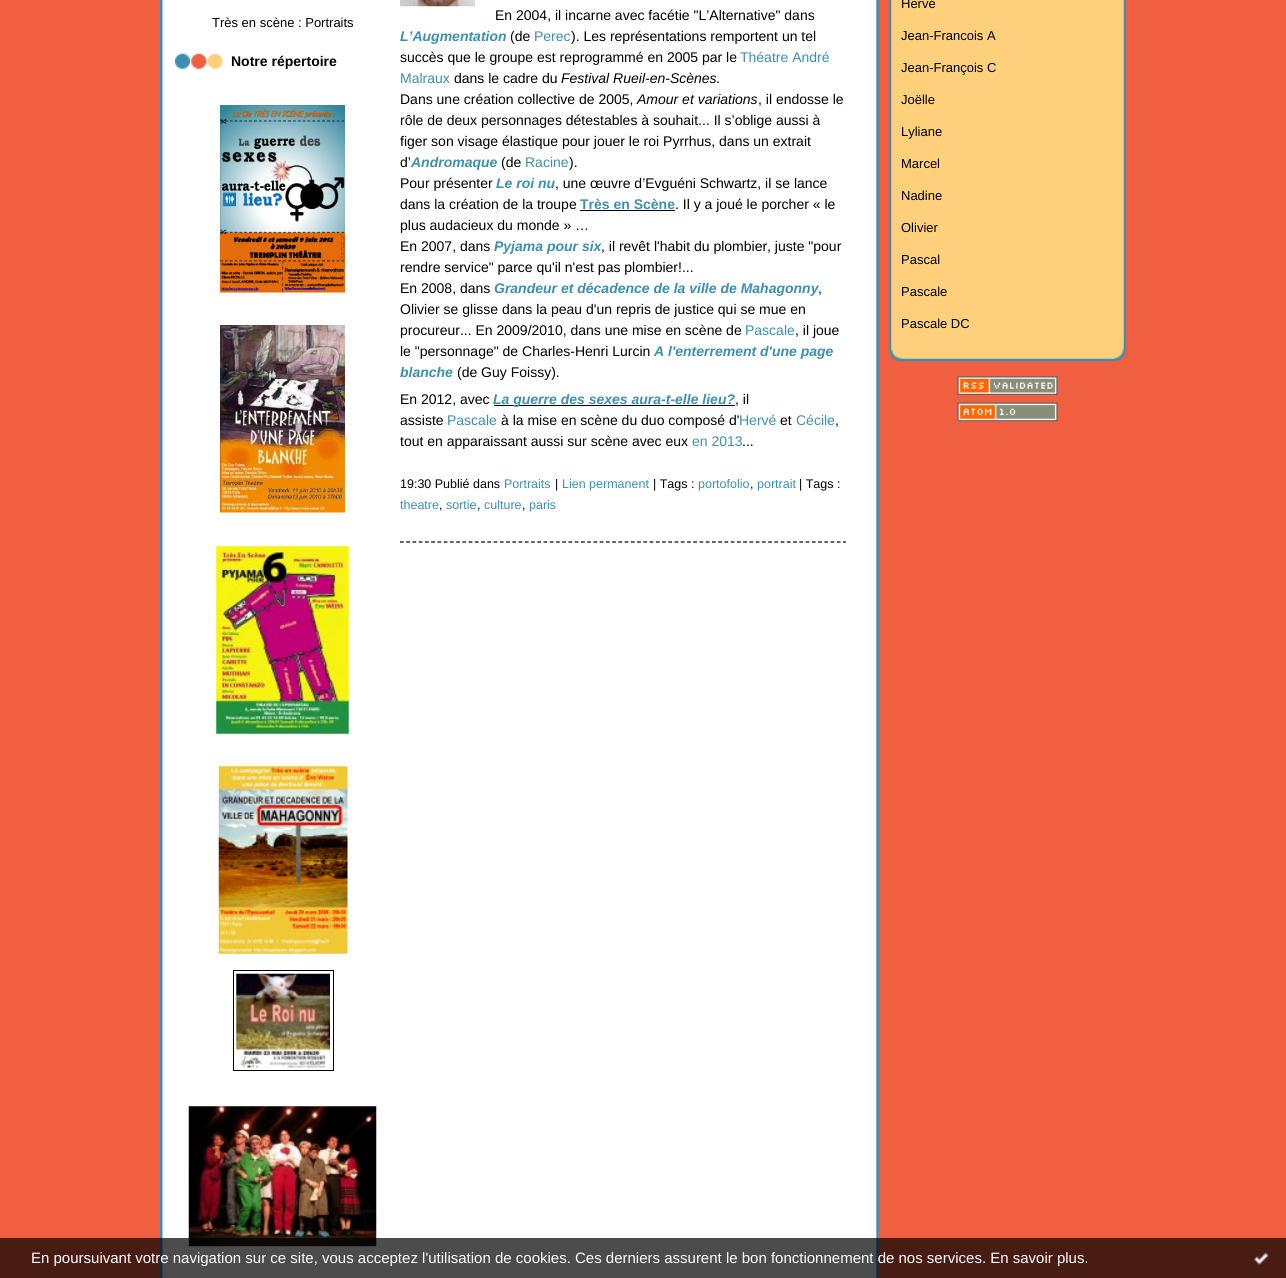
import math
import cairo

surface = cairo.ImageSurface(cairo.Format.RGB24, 1286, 1278)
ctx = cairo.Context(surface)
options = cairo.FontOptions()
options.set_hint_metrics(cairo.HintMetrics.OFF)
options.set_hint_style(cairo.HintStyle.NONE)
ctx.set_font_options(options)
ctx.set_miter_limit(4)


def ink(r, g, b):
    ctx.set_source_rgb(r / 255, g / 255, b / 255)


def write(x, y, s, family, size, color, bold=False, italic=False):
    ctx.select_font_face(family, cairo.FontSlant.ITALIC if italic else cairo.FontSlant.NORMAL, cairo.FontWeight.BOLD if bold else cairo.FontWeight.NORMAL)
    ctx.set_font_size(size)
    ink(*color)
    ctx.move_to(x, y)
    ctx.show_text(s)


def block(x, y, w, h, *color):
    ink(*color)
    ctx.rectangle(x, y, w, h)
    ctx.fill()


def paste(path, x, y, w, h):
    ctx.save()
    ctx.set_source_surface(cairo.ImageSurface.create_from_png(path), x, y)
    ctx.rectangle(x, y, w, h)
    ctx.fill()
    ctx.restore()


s1 = dict(family="Liberation Sans", size=13, color=(0, 0, 0))
s2 = dict(family="Liberation Sans", size=14, color=(0, 0, 0), bold=True)
s3 = dict(family="Liberation Sans", size=14, color=(0, 0, 0))
s4 = dict(family="Liberation Sans", size=14, color=(59, 143, 179), bold=True, italic=True)
s5 = dict(family="Liberation Sans", size=14, color=(59, 143, 179))
s6 = dict(family="Liberation Sans", size=14, color=(0, 0, 0), italic=True)
s7 = dict(family="Liberation Sans", size=14, color=(59, 143, 179), bold=True)
s8 = dict(family="Liberation Sans", size=12.5, color=(0, 0, 0))
s9 = dict(family="Liberation Sans", size=12.5, color=(59, 143, 179))
s10 = dict(family="Liberation Sans", size=15, color=(255, 255, 255))

ink(240, 95, 64)
ctx.paint()
paste("pic1.png", 160, 0, 719, 1278)
write(212, 27, "Très en scène : Portraits", **s1)
paste("pic2.png", 175, 53, 48, 16)
write(231, 66, "Notre répertoire", **s2)
paste("pic3.png", 220, 105, 125, 188)
paste("pic4.png", 220, 325, 125, 188)
paste("pic5.png", 216, 546, 133, 188)
paste("pic6.png", 218, 766, 130, 188)
ctx.rectangle(233.5, 970.5, 100, 100)
ctx.set_line_width(1)
ctx.stroke()
paste("pic7.png", 236, 973, 94, 95)
paste("pic8.png", 188, 1106, 189, 141)
paste("pic9.png", 400, 0, 75, 7)
write(495, 20, "En 2004, il incarne avec facétie \"L’Alternative\" dans", **s3)
write(400, 41, "L’Augmentation", **s4)
write(510, 41, "(de", **s3)
write(534, 41, "Perec", **s5)
write(571, 41, "). Les représentations remportent un tel", **s3)
write(400, 62, "succès que le groupe est reprogrammé en 2005 par le", **s3)
write(740, 62, "Théatre André", **s5)
write(400, 83, "Malraux", **s5)
write(454, 83, "dans le cadre du", **s3)
write(561, 83, "Festival Rueil-en-Scènes", **s6)
write(716, 83, ".", **s3)
write(400, 104, "Dans une création collective de 2005,", **s3)
write(637, 104, "Amour et variations", **s6)
write(758, 104, ", il endosse le", **s3)
write(400, 125, "rôle de deux personnages détestables à souhait... Il s’oblige aussi à", **s3)
write(400, 146, "figer son visage élastique pour jouer le roi Pyrrhus, dans un extrait", **s3)
write(400, 167, "d’", **s3)
write(411, 167, "Andromaque", **s4)
write(501, 167, "(de", **s3)
write(525, 167, "Racine", **s5)
write(569, 167, ").", **s3)
write(400, 188, "Pour présenter", **s3)
write(496, 188, "Le roi nu", **s4)
write(555, 188, ", une œuvre d’Evguéni Schwartz, il se lance", **s3)
write(400, 209, "dans la création de la troupe", **s3)
write(580, 209, "Très en Scène", **s7)
block(580, 210, 95, 1, 0, 0, 0)
write(675, 209, ". Il y a joué le porcher « le", **s3)
write(400, 230, "plus audacieux du monde » …", **s3)
write(400, 251, "En 2007, dans", **s3)
write(494, 251, "Pyjama pour six", **s4)
write(601, 251, ", il revêt l'habit du plombier, juste \"pour", **s3)
write(400, 272, "rendre service\" parce qu'il n'est pas plombier!...", **s3)
write(400, 293, "En 2008, dans", **s3)
write(494, 293, "Grandeur et décadence de la ville de Mahagonny", **s4)
write(818, 293, ",", **s3)
write(400, 314, "Olivier se glisse dans la peau d'un repris de justice qui se mue en", **s3)
write(400, 335, "procureur... En 2009/2010, dans une mise en scène de", **s3)
write(745, 335, "Pascale", **s5)
write(795, 335, ", il joue", **s3)
write(400, 356, "le \"personnage\" de Charles-Henri Lurcin", **s3)
write(654, 356, "A l'enterrement d'une page", **s4)
write(400, 377, "blanche", **s4)
write(457, 377, "(de Guy Foissy).", **s3)
write(400, 404, "En 2012, avec", **s3)
block(494, 405, 241, 1, 0, 0, 0)
write(493, 404, "La guerre des sexes aura-t-elle lieu?", **s4)
write(735, 404, ", il", **s3)
write(400, 425, "assiste", **s3)
write(447, 425, "Pascale", **s5)
write(501, 425, "à la mise en scène du duo composé d'", **s3)
write(739, 425, "Hervé", **s5)
write(780, 425, "et", **s3)
write(796, 425, "Cécile", **s5)
write(835, 425, ",", **s3)
write(400, 446, "tout en apparaissant aussi sur scène avec eux", **s3)
write(692, 446, "en 2013", **s5)
write(742, 446, "...", **s3)
ctx.new_path()
ctx.move_to(400, 542)
ctx.line_to(846, 542)
ctx.set_line_width(1.2)
ctx.set_dash([3.75, 2.49])
ctx.stroke()
write(400, 488, "19:30 Publié dans", **s8)
write(504, 488, "Portraits", **s9)
write(555, 488, "|", **s8)
write(562, 488, "Lien permanent", **s9)
write(653, 488, "| Tags :", **s8)
write(698, 488, "portofolio", **s9)
write(750, 488, ",", **s8)
write(757, 488, "portrait", **s9)
write(799, 488, "| Tags :", **s8)
write(400, 509, "theatre", **s9)
write(439, 509, ",", **s8)
write(446, 509, "sortie", **s9)
write(477, 509, ",", **s8)
write(484, 509, "culture", **s9)
write(522, 509, ",", **s8)
write(529, 509, "paris", **s9)
paste("pic10.png", 888, 346, 239, 16)
paste("pic11.png", 888, 0, 239, 28)
write(901, 8, "Hervé", **s1)
paste("pic12.png", 888, 26, 239, 34)
write(901, 40, "Jean-Francois A", **s1)
paste("pic13.png", 888, 59, 239, 32)
write(901, 72, "Jean-François C", **s1)
paste("pic14.png", 888, 90, 239, 34)
write(901, 104, "Joëlle", **s1)
paste("pic15.png", 888, 122, 239, 34)
write(901, 136, "Lyliane", **s1)
paste("pic16.png", 888, 155, 239, 33)
write(901, 168, "Marcel", **s1)
paste("pic17.png", 888, 186, 239, 34)
write(901, 200, "Nadine", **s1)
paste("pic18.png", 888, 219, 239, 32)
write(901, 232, "Olivier", **s1)
paste("pic14.png", 888, 250, 239, 34)
write(901, 264, "Pascal", **s1)
paste("pic19.png", 888, 282, 239, 33)
write(901, 296, "Pascale", **s1)
paste("pic20.png", 888, 314, 239, 34)
write(901, 328, "Pascale DC", **s1)
paste("pic21.png", 957, 376, 101, 19)
paste("pic22.png", 957, 402, 101, 20)
ctx.set_source_rgba(0, 0, 0, 0.7)
ctx.rectangle(0, 1238, 1286, 40)
ctx.fill()
write(31, 1263, "En poursuivant votre navigation sur ce site, vous acceptez l'utilisation de cookies. Ces derniers assurent le bon fonctionnement de nos services. En savoir plus.", **s10)
paste("pic23.png", 1253, 1252, 16, 13)
surface.write_to_png("screenshot.png")
